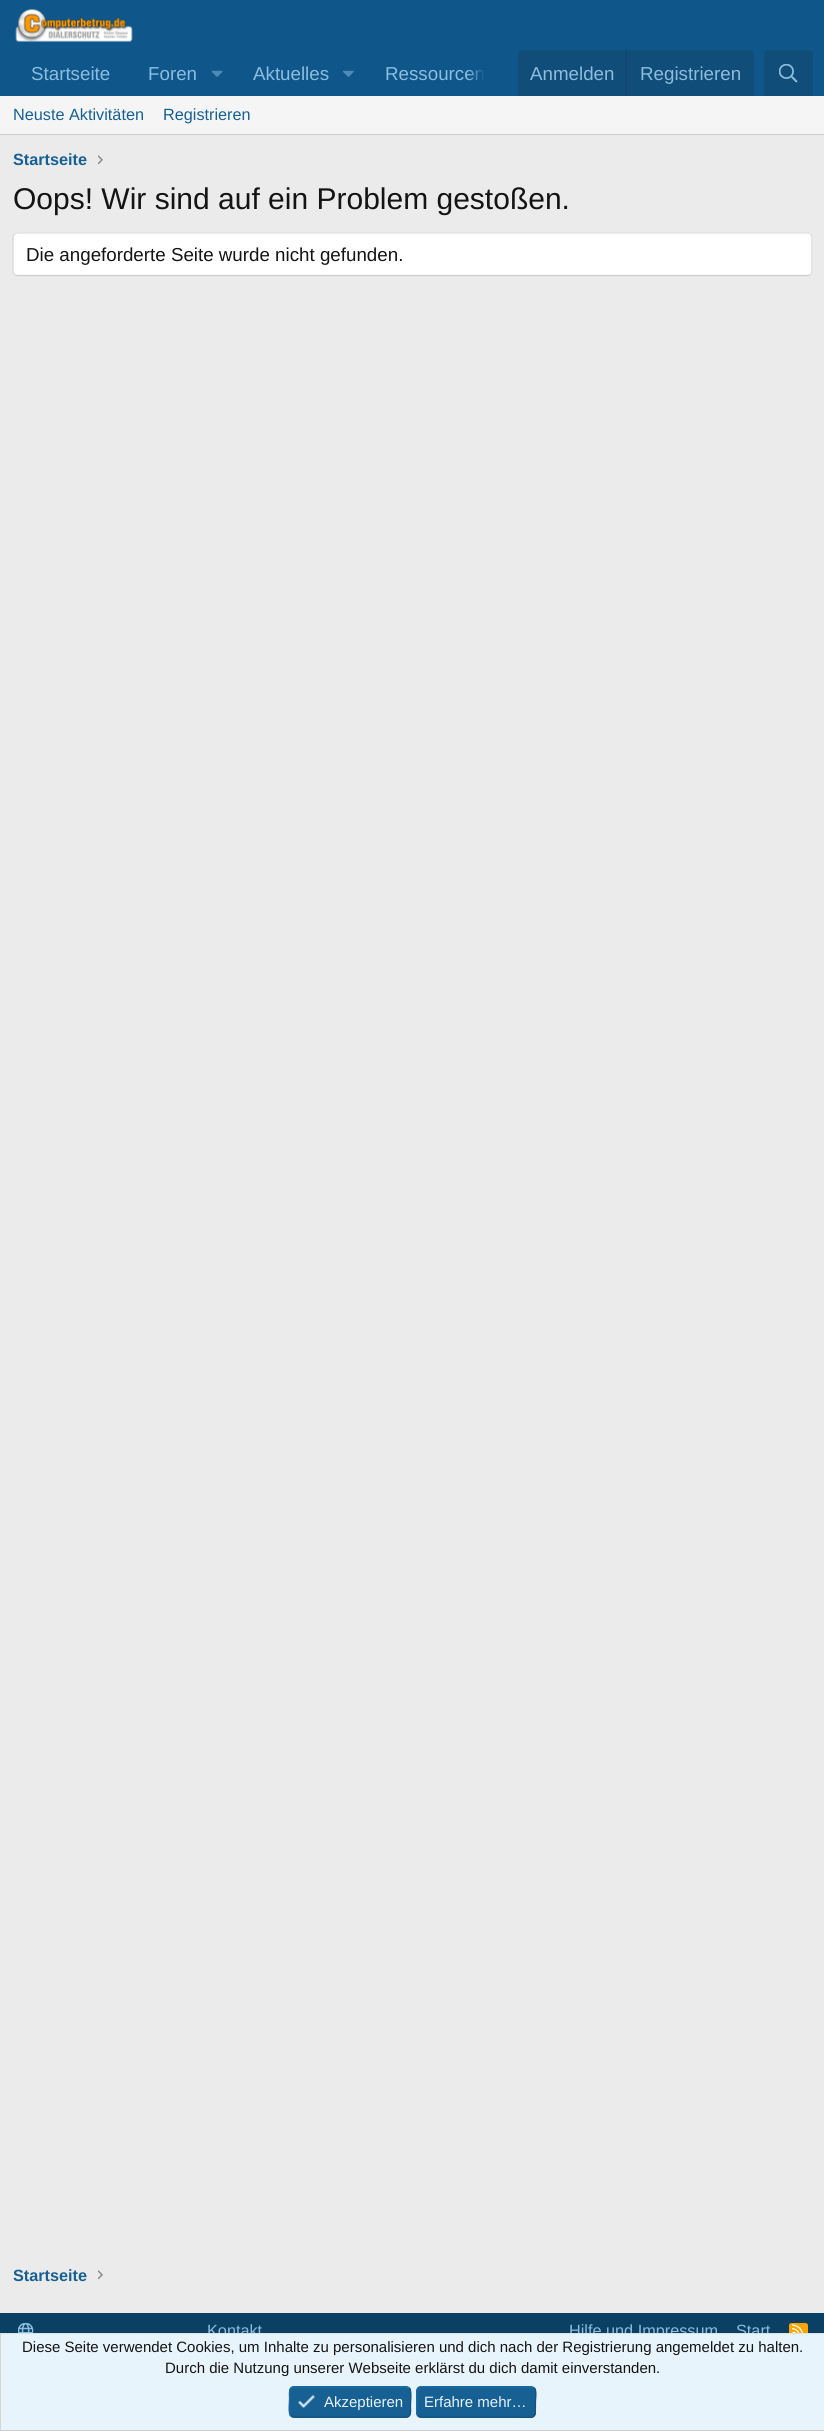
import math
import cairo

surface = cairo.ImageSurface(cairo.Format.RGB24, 824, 2431)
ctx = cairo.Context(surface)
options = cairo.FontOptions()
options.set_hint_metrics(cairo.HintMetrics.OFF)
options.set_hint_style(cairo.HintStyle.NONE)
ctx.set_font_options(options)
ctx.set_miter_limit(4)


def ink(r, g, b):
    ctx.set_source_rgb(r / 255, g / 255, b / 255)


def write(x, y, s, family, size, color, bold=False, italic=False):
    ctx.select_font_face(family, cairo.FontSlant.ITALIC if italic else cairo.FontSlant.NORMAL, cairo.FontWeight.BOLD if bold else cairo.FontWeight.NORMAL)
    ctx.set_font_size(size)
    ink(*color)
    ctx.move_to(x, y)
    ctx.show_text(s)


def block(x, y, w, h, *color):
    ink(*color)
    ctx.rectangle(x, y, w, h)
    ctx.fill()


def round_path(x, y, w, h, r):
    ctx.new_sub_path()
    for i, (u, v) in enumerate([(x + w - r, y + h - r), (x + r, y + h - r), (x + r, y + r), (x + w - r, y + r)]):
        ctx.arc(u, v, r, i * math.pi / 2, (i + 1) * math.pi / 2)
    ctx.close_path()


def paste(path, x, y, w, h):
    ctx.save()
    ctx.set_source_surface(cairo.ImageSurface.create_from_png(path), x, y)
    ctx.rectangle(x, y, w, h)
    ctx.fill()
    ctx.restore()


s1 = dict(family="Liberation Sans", size=18.75, color=(139, 189, 224))
s2 = dict(family="Liberation Sans", size=16.25, color=(23, 96, 147))
s3 = dict(family="Liberation Sans", size=16.25, color=(23, 96, 147), bold=True)
s4 = dict(family="Liberation Sans", size=30, color=(20, 20, 20))
s5 = dict(family="Liberation Sans", size=18.75, color=(20, 20, 20))
s6 = dict(family="Liberation Sans", size=16.25, color=(139, 189, 224))
s7 = dict(family="Liberation Sans", size=15, color=(20, 20, 20))
s8 = dict(family="Liberation Sans", size=15, color=(232, 244, 252))

ink(235, 235, 235)
ctx.paint()
block(0, 0, 824, 96, 15, 87, 138)
paste("pic1.png", 15, 9, 118, 33)
write(31, 80, "Startseite", **s1)
write(148, 80, "Foren", **s1)
paste("pic2.png", 211, 70, 12, 7)
write(253, 80, "Aktuelles", **s1)
paste("pic3.png", 343, 70, 11, 7)
write(385, 80, "Ressourcen", **s1)
gradient = cairo.LinearGradient(468, 73, 518, 73)
gradient.add_color_stop_rgba(0, 0.059, 0.341, 0.541, 0)
gradient.add_color_stop_rgba(0.33, 0.059, 0.341, 0.541, 1)
ctx.set_source(gradient)
ctx.rectangle(468, 69, 17, 11)
ctx.fill()
ink(16, 77, 120)
ctx.new_path()
ctx.move_to(523, 50)
ctx.line_to(749, 50)
ctx.curve_to(752, 50, 754, 52, 754, 55)
ctx.line_to(754, 96)
ctx.line_to(518, 96)
ctx.line_to(518, 55)
ctx.curve_to(518, 52, 520, 50, 523, 50)
ctx.close_path()
ctx.fill()
write(530, 80, "Anmelden", **s1)
block(626, 50, 1, 46, 17, 68, 105)
write(640, 80, "Registrieren", **s1)
ink(16, 77, 120)
ctx.new_path()
ctx.move_to(769, 50)
ctx.line_to(808, 50)
ctx.curve_to(811, 50, 813, 52, 813, 55)
ctx.line_to(813, 96)
ctx.line_to(764, 96)
ctx.line_to(764, 55)
ctx.curve_to(764, 52, 766, 50, 769, 50)
ctx.close_path()
ctx.fill()
paste("pic4.png", 779, 64, 19, 19)
block(0, 96, 824, 38, 245, 245, 245)
block(0, 134, 824, 1, 204, 204, 204)
write(13, 120, "Neuste Aktivitäten", **s2)
write(163, 120, "Registrieren", **s2)
write(13, 165, "Startseite", **s3)
paste("pic5.png", 98, 155, 5, 10)
write(13, 209, "Oops! Wir sind auf ein Problem gestoßen.", **s4)
ink(255, 255, 255)
round_path(13, 233, 800, 43, 5)
ctx.fill()
ctx.new_path()
ctx.move_to(14.5, 234.5)
ctx.curve_to(15, 233.5, 16.5, 233, 17.5, 233)
ctx.line_to(807.5, 233)
ctx.curve_to(808.5, 233, 810, 233.5, 810.5, 234.5)
ink(224, 224, 224)
ctx.set_line_width(1.2)
ctx.stroke()
ctx.new_path()
ctx.move_to(810.5, 234.5)
ctx.curve_to(811.5, 235, 812, 236.5, 812, 237.5)
ctx.line_to(812, 271)
ctx.curve_to(812, 272.5, 811.5, 273.5, 810.5, 274.5)
ink(214, 214, 214)
ctx.stroke()
ctx.new_path()
ctx.move_to(810.5, 274.5)
ctx.curve_to(810, 275, 808.5, 275.5, 807.5, 275.5)
ctx.line_to(17.5, 275.5)
ctx.curve_to(16.5, 275.5, 15, 275, 14.5, 274.5)
ink(204, 204, 204)
ctx.stroke()
ctx.new_path()
ctx.move_to(14.5, 274.5)
ctx.curve_to(13.5, 273.5, 13, 272.5, 13, 271)
ctx.line_to(13, 237.5)
ctx.curve_to(13, 236.5, 13.5, 235, 14.5, 234.5)
ink(214, 214, 214)
ctx.stroke()
write(26, 261, "Die angeforderte Seite wurde nicht gefunden.", **s5)
write(13, 2281, "Startseite", **s3)
paste("pic5.png", 98, 2270, 5, 10)
block(0, 2313, 824, 20, 11, 64, 101)
paste("pic6.png", 17, 2322, 17, 11)
write(207, 2336, "Kontakt", **s6)
write(569, 2336, "Hilfe und Impressum", **s6)
write(736, 2336, "Start", **s6)
ink(255, 165, 0)
round_path(789, 2323, 19, 18, 2.5)
ctx.fill()
paste("pic7.png", 792, 2324, 11, 9)
block(1, 2334, 823, 96, 232, 244, 252)
block(0, 2333, 824, 1, 224, 224, 224)
block(0, 2430, 824, 1, 204, 204, 204)
block(0, 2333, 1, 98, 214, 214, 214)
write(22, 2352, "Diese Seite verwendet Cookies, um Inhalte zu personalisieren und dich nach der Registrierung angemeldet zu halten.", **s7)
write(165, 2373, "Durch die Nutzung unserer Webseite erklärst du dich damit einverstanden.", **s7)
ink(23, 96, 147)
round_path(289, 2386, 122, 32, 5)
ctx.fill()
ctx.new_path()
ctx.move_to(409.5, 2388)
ctx.curve_to(412, 2391, 410.5, 2402, 410.5, 2405.5)
ctx.curve_to(410.5, 2409, 412, 2417, 406, 2417)
ctx.line_to(294, 2417)
ctx.line_to(290.5, 2415.5)
ink(20, 82, 125)
ctx.stroke()
ctx.new_path()
ctx.move_to(290.5, 2415.5)
ctx.curve_to(288, 2413, 289.5, 2402, 289.5, 2398.5)
ctx.curve_to(289.5, 2395, 288, 2387, 294, 2387)
ctx.line_to(406, 2387)
ctx.line_to(409.5, 2388)
ink(26, 110, 169)
ctx.stroke()
paste("pic8.png", 298, 2394, 17, 14)
write(324, 2407, "Akzeptieren", **s8)
ink(23, 96, 147)
round_path(416, 2386, 120, 32, 5)
ctx.fill()
ctx.new_path()
ctx.move_to(534.5, 2388)
ctx.curve_to(537, 2391, 535.5, 2398.5, 535.5, 2402)
ctx.curve_to(535.5, 2421.5, 536, 2417, 513, 2417)
ctx.line_to(421, 2417)
ctx.line_to(418, 2415.5)
ink(20, 82, 125)
ctx.stroke()
ctx.new_path()
ctx.move_to(418, 2415.5)
ctx.curve_to(415.5, 2413, 417, 2405, 417, 2402)
ctx.curve_to(417, 2382.5, 416.5, 2387, 439.5, 2387)
ctx.line_to(531, 2387)
ctx.line_to(534.5, 2388)
ink(26, 110, 169)
ctx.stroke()
write(424, 2407, "Erfahre mehr…", **s8)
surface.write_to_png("screenshot.png")
